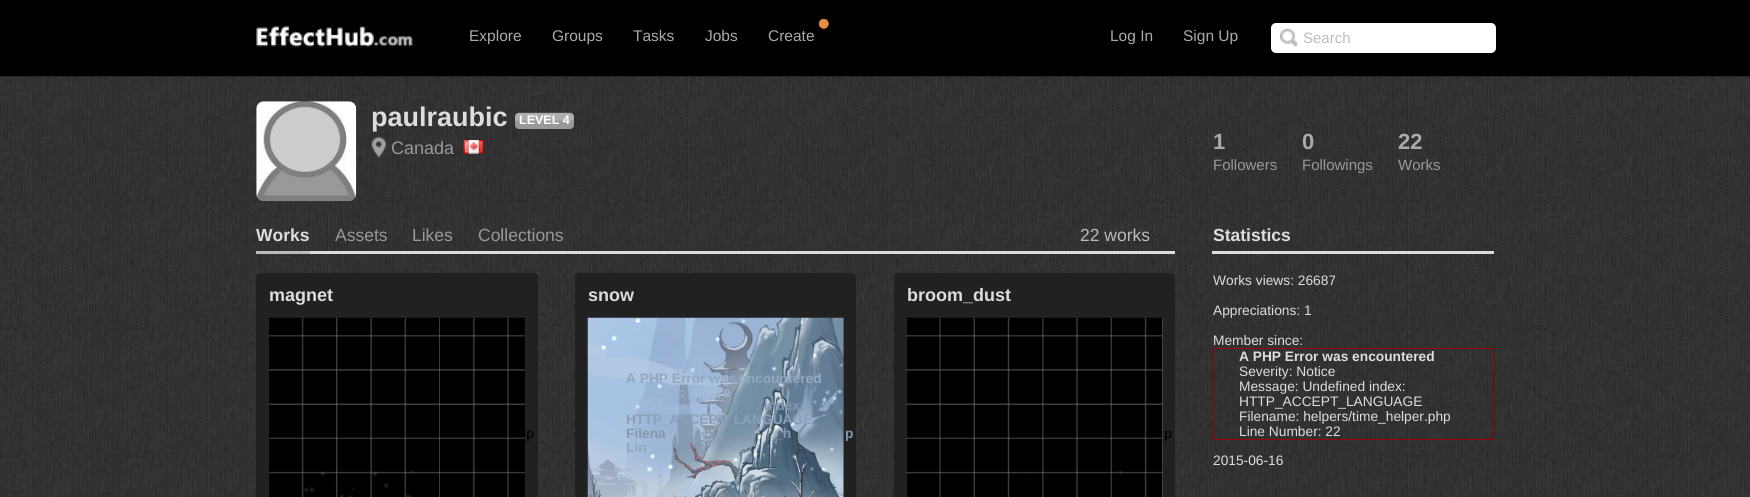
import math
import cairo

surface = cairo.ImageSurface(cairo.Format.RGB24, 1750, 497)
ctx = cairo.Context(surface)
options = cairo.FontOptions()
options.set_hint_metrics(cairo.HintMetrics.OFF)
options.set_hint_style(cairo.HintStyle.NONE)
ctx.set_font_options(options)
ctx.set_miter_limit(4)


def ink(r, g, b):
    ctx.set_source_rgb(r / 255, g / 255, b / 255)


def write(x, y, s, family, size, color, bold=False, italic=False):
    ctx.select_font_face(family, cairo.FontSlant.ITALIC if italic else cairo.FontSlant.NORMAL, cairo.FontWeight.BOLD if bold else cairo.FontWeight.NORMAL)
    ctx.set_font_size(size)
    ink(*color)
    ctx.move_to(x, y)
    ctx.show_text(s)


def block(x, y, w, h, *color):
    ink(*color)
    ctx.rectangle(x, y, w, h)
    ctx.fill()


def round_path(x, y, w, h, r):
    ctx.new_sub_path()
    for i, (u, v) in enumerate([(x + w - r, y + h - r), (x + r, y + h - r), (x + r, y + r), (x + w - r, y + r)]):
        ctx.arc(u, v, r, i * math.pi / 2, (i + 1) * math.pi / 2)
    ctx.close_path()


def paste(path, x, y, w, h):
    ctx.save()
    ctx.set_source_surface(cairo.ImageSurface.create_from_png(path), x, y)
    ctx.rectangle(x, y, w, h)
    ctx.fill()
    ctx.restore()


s1 = dict(family="Liberation Sans", size=15.5, color=(170, 170, 170))
s2 = dict(family="Liberation Sans", size=15, color=(187, 187, 187))
s3 = dict(family="Liberation Sans", size=27, color=(221, 221, 221), bold=True)
s4 = dict(family="Liberation Sans", size=12.5, color=(255, 255, 255), bold=True)
s5 = dict(family="Liberation Sans", size=18, color=(153, 153, 153))
s6 = dict(family="Liberation Sans", size=22, color=(170, 170, 170), bold=True)
s7 = dict(family="Liberation Sans", size=15, color=(153, 153, 153))
s8 = dict(family="Liberation Sans", size=17.5, color=(221, 221, 221), bold=True)
s9 = dict(family="Liberation Sans", size=17.5, color=(153, 153, 153))
s10 = dict(family="Liberation Sans", size=17.5, color=(187, 187, 187))
s11 = dict(family="Liberation Sans", size=18, color=(221, 221, 221), bold=True)
s12 = dict(family="Liberation Sans", size=13.75, color=(7, 7, 7), bold=True)
s13 = dict(family="Liberation Sans", size=13.75, color=(145, 168, 193), bold=True)
s14 = dict(family="Liberation Sans", size=13.75, color=(157, 182, 213), bold=True)
s15 = dict(family="Liberation Sans", size=13.75, color=(131, 153, 175), bold=True)
s16 = dict(family="Liberation Sans", size=13.75, color=(138, 161, 187), bold=True)
s17 = dict(family="Liberation Sans", size=13.75, color=(221, 221, 221))
s18 = dict(family="Liberation Sans", size=13.75, color=(221, 221, 221), bold=True)

ink(0, 0, 0)
ctx.paint()
paste("pic1.png", 256, 25, 159, 25)
write(469, 41, "Explore", **s1)
write(552, 41, "Groups", **s1)
write(633, 41, "Tasks", **s1)
write(705, 41, "Jobs", **s1)
paste("pic2.png", 818, 18, 11, 11)
write(768, 41, "Create", **s1)
write(1110, 41, "Log In", **s1)
write(1183, 41, "Sign Up", **s1)
ink(255, 255, 255)
round_path(1271, 23, 225, 30, 5)
ctx.fill()
paste("pic3.png", 1280, 28, 18, 19)
write(1303, 43, "Search", **s2)
paste("pic4.png", 0, 76, 1750, 421)
paste("pic5.png", 256, 101, 101, 101)
write(371, 126, "paulraubic", **s3)
ink(153, 153, 153)
round_path(515, 113, 59, 16, 4)
ctx.fill()
paste("pic6.png", 515, 112, 59, 9)
write(519, 124, "LEVEL 4", **s4)
paste("pic7.png", 371, 137, 16, 21)
write(391, 154, "Canada", **s5)
paste("pic8.png", 463, 140, 21, 14)
write(1213, 149, "1", **s6)
write(1213, 170, "Followers", **s7)
write(1302, 149, "0", **s6)
write(1302, 170, "Followings", **s7)
write(1398, 149, "22", **s6)
write(1398, 170, "Works", **s7)
block(310, 251, 865, 3, 221, 221, 221)
block(256, 251, 54, 3, 187, 187, 187)
write(256, 241, "Works", **s8)
write(335, 241, "Assets", **s9)
write(412, 241, "Likes", **s9)
write(478, 241, "Collections", **s9)
write(1080, 241, "22 works", **s10)
ink(33, 33, 33)
round_path(256, 273, 282, 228, 4)
ctx.fill()
write(269, 301, "magnet", **s11)
paste("pic9.png", 269, 317, 256, 180)
write(526, 438, "p", **s12)
ink(33, 33, 33)
round_path(575, 273, 281, 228, 4)
ctx.fill()
write(588, 301, "snow", **s11)
block(843, 318, 1, 179, 85, 85, 85)
paste("pic10.png", 587, 317, 257, 180)
write(626, 383, "A PHP Error was encountered", **s13)
write(680, 397, ":", **s14)
write(723, 397, "e", **s14)
write(764, 410, "index:", **s15)
write(626, 424, "HTTP_ACCEPT_LANGUAGE", **s16)
write(626, 438, "Filena", **s15)
write(775, 438, "_h", **s15)
write(845, 438, "p", **s15)
write(626, 452, "Lin", **s13)
ink(33, 33, 33)
round_path(894, 273, 281, 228, 4)
ctx.fill()
write(907, 301, "broom_dust", **s11)
block(906, 318, 257, 179, 85, 85, 85)
paste("pic11.png", 906, 317, 257, 180)
write(1164, 438, "p", **s12)
block(1212, 251, 282, 3, 221, 221, 221)
write(1213, 241, "Statistics", **s8)
write(1213, 285, "Works views: 26687", **s17)
write(1213, 315, "Appreciations: 1", **s17)
write(1213, 345, "Member since:", **s17)
ctx.rectangle(1213.5, 348.5, 280, 91)
ink(153, 0, 0)
ctx.set_line_width(1)
ctx.stroke()
write(1239, 361, "A PHP Error was encountered", **s18)
write(1239, 376, "Severity: Notice", **s17)
write(1239, 391, "Message: Undefined index:", **s17)
write(1239, 406, "HTTP_ACCEPT_LANGUAGE", **s17)
write(1239, 421, "Filename: helpers/time_helper.php", **s17)
write(1239, 436, "Line Number: 22", **s17)
write(1213, 465, "2015-06-16", **s17)
surface.write_to_png("screenshot.png")
